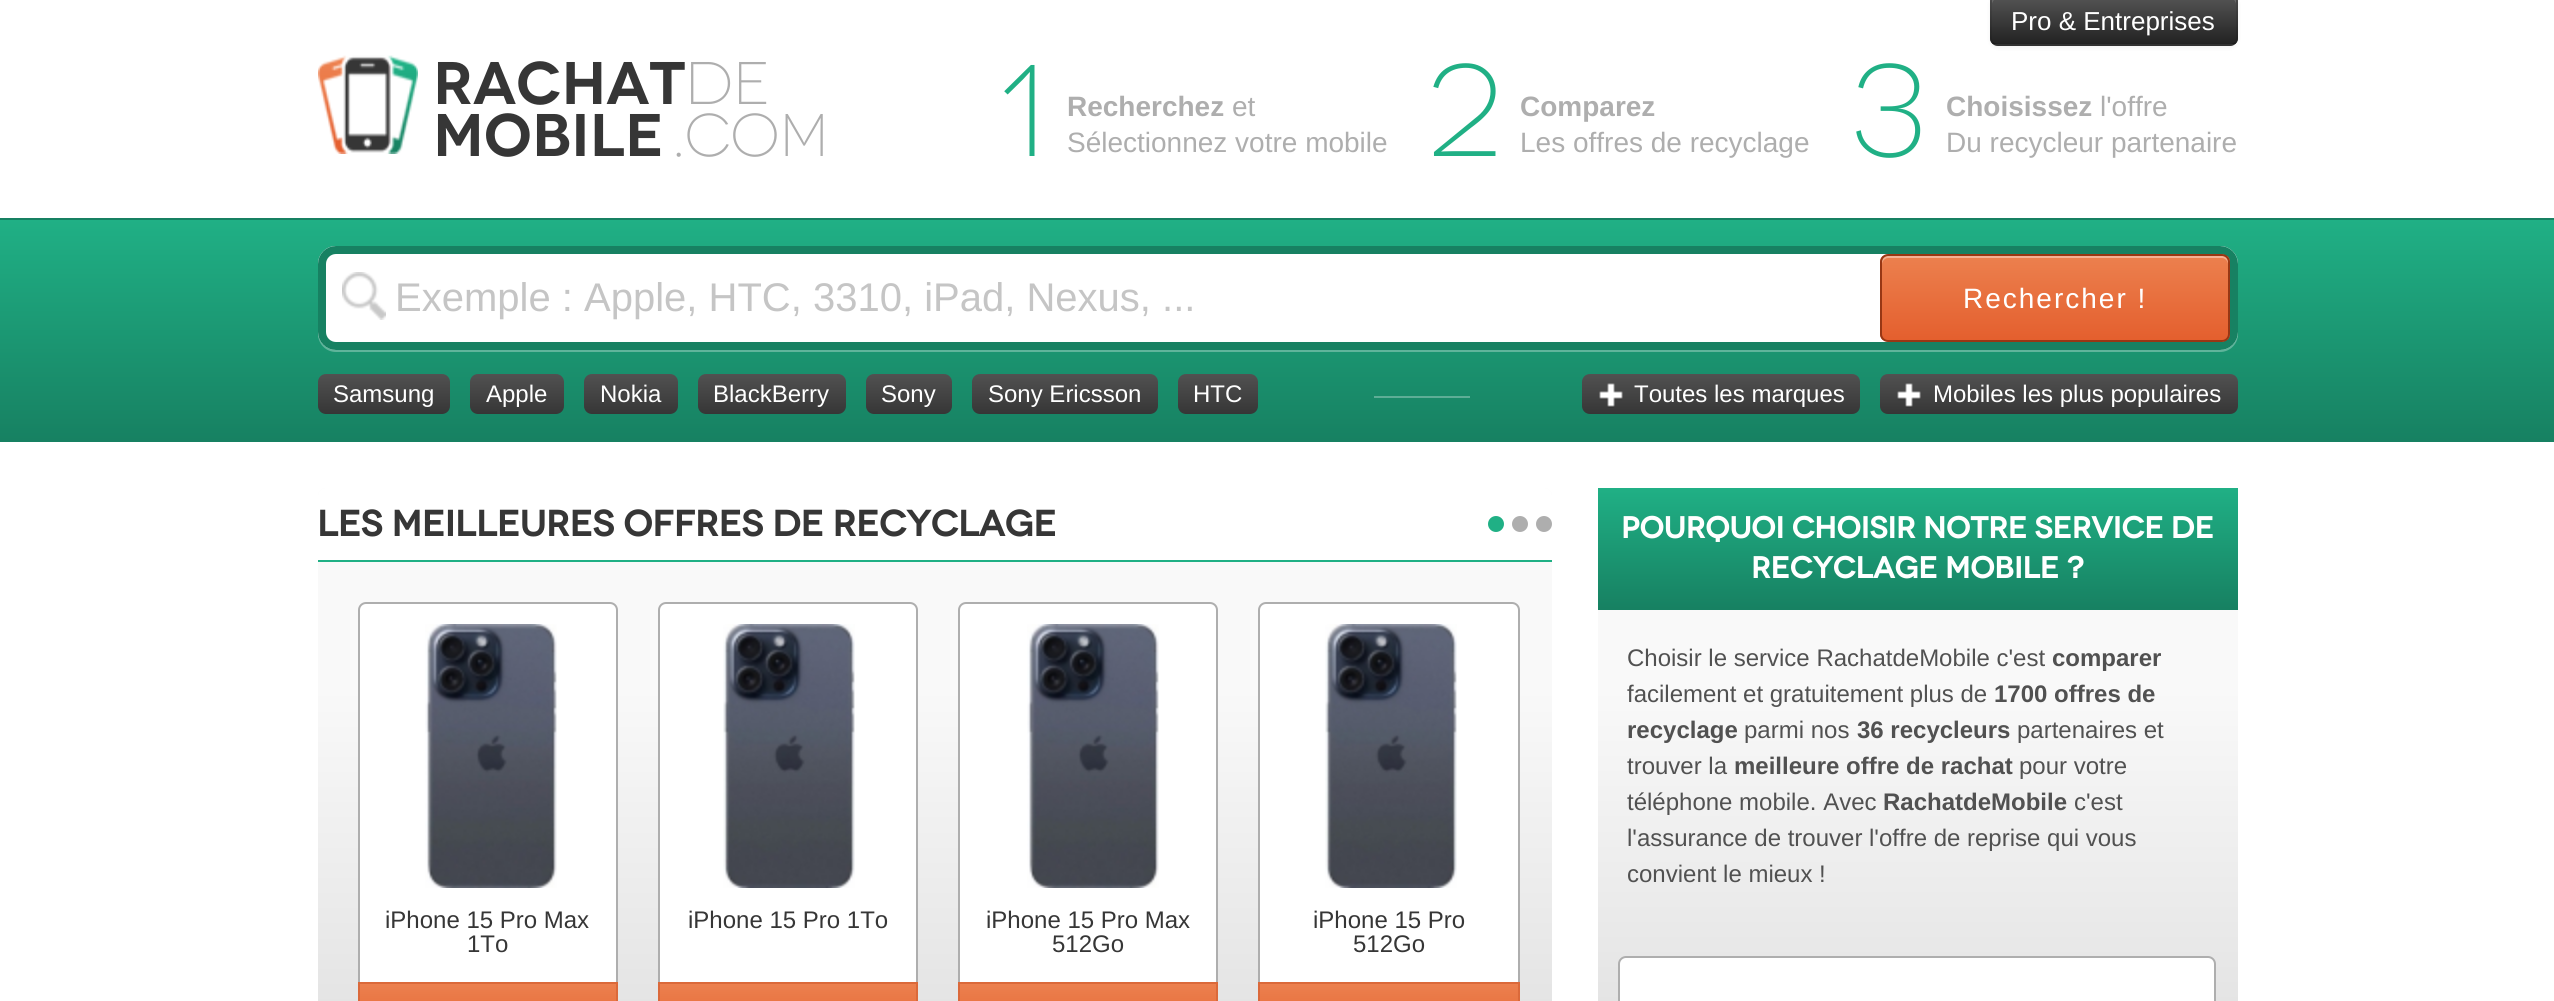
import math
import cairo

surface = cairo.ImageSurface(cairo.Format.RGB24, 2554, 1001)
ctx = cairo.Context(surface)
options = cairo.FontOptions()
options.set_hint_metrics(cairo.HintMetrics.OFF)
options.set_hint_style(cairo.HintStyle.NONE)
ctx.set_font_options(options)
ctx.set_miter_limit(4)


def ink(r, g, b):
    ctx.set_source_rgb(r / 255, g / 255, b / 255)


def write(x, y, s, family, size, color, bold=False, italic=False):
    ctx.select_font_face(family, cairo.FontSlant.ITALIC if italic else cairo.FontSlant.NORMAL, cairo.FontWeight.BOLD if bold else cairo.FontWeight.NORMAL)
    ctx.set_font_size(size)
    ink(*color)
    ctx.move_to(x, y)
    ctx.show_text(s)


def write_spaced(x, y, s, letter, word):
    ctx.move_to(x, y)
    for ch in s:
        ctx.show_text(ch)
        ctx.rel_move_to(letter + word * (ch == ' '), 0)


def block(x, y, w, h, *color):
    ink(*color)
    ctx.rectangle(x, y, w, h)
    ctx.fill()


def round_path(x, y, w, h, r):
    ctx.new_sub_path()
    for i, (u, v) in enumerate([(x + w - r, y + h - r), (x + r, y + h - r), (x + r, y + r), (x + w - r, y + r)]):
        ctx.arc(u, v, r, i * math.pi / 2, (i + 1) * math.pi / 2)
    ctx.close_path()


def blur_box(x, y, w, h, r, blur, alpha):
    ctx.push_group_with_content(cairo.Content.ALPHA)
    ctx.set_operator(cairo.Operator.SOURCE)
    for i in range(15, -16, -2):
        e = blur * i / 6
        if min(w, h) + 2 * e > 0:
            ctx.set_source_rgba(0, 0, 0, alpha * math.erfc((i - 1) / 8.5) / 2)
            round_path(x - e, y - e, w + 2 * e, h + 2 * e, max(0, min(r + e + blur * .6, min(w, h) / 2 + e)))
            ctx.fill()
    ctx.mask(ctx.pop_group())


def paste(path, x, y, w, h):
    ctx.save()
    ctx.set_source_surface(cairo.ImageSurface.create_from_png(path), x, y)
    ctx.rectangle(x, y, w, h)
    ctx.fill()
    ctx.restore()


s1 = dict(family="Liberation Sans", size=26, color=(255, 255, 255))
s2 = dict(family="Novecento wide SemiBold", size=60, color=(54, 54, 54))
s3 = dict(family="Novecento wide Light", size=60, color=(174, 174, 174))
s4 = dict(family="Novecento wide Light", size=130, color=(32, 176, 133))
s5 = dict(family="Liberation Sans", size=28, color=(174, 174, 174), bold=True)
s6 = dict(family="Liberation Sans", size=28, color=(174, 174, 174))
s7 = dict(family="Liberation Sans", size=40, color=(197, 197, 197))
s8 = dict(family="Liberation Sans", size=24, color=(255, 255, 255))
s9 = dict(family="Novecento wide", size=36, color=(54, 54, 54), bold=True)
s10 = dict(family="Liberation Sans", size=24, color=(54, 54, 54))
s11 = dict(family="Novecento wide", size=30, color=(255, 255, 255), bold=True)
s12 = dict(family="Liberation Sans", size=24, color=(81, 81, 81))
s13 = dict(family="Liberation Sans", size=24, color=(81, 81, 81), bold=True)

ink(255, 255, 255)
ctx.paint()
ink(0, 0, 0)
blur_box(1990, -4, 248, 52, 8, 2, 0.05)
ink(65, 65, 65)
round_path(1990, -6, 248, 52, 8)
ctx.fill()
ctx.save()
round_path(1990, -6, 248, 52, 8)
ctx.clip()
gradient = cairo.LinearGradient(2114, -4, 2114, 44)
gradient.add_color_stop_rgba(0, 0.333, 0.333, 0.333, 1)
gradient.add_color_stop_rgba(1, 0.133, 0.133, 0.133, 1)
ctx.set_source(gradient)
ctx.rectangle(1990, 0, 248, 44)
ctx.fill()
ctx.restore()
ink(115, 115, 115)
ctx.new_path()
ctx.move_to(1998, -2)
ctx.line_to(2230, -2)
ctx.curve_to(2233, -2, 2236, 1, 2236, 4)
ctx.line_to(2236, 2)
ctx.curve_to(2236, -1, 2233, -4, 2230, -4)
ctx.line_to(1998, -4)
ctx.curve_to(1995, -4, 1992, -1, 1992, 2)
ctx.line_to(1992, 4)
ctx.curve_to(1992, 1, 1995, -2, 1998, -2)
ctx.close_path()
ctx.fill()
ctx.new_path()
ctx.move_to(2235, 43)
ctx.curve_to(2233.5, 44.5, 2232, 45, 2230, 45)
ctx.line_to(1998, 45)
ctx.curve_to(1996, 45, 1994.5, 44.5, 1993, 43)
ctx.set_source_rgba(0, 0, 0, 0.25)
ctx.stroke()
ctx.new_path()
ctx.move_to(1993, 43)
ctx.curve_to(1991.5, 41.5, 1991, 40, 1991, 38)
ctx.line_to(1991, 2)
ctx.curve_to(1991, 0, 1991.5, -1.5, 1993, -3)
ctx.curve_to(1994.5, -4.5, 1996, -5, 1998, -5)
ctx.line_to(2230, -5)
ctx.curve_to(2232, -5, 2233.5, -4.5, 2235, -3)
ctx.curve_to(2236.5, -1.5, 2237, 0, 2237, 2)
ctx.line_to(2237, 38)
ctx.curve_to(2237, 40, 2236.5, 41.5, 2235, 43)
ctx.set_source_rgba(0, 0, 0, 0.1)
ctx.stroke()
write(2011, 30, "Pro & Entreprises", **s1)
paste("pic1.png", 318, 55, 100, 99)
write(433, 104, "Rachat", **s2)
write(685, 104, "de", **s3)
write(433, 156, "Mobile", **s2)
write(673, 156, ".com", **s3)
write(998, 156, "1", **s4)
write(1067, 116, "Recherchez", **s5)
write(1232, 116, "et", **s6)
write(1067, 152, "Sélectionnez votre mobile", **s6)
write(1428, 156, "2", **s4)
write(1520, 116, "Comparez", **s5)
write(1520, 152, "Les offres de recyclage", **s6)
write(1850, 156, "3", **s4)
write(1946, 116, "Choisissez", **s5)
write(2100, 116, "l'offre", **s6)
write(1946, 152, "Du recycleur partenaire", **s6)
gradient = cairo.LinearGradient(1277, 0, 1277, 220)
gradient.add_color_stop_rgba(0, 0.125, 0.69, 0.522, 1)
gradient.add_color_stop_rgba(1, 0.09, 0.506, 0.384, 1)
ctx.set_source(gradient)
ctx.rectangle(0, 218, 2554, 2)
ctx.fill()
gradient = cairo.LinearGradient(1277, 220, 1277, 440)
gradient.add_color_stop_rgba(0, 0.125, 0.69, 0.522, 1)
gradient.add_color_stop_rgba(1, 0.09, 0.506, 0.384, 1)
ctx.set_source(gradient)
ctx.rectangle(0, 220, 2554, 220)
ctx.fill()
block(0, 440, 2554, 2, 23, 129, 98)
ctx.set_source_rgba(1, 1, 1, 0.3)
ctx.new_path()
ctx.move_to(318, 332)
ctx.line_to(318, 334)
ctx.curve_to(318, 344, 326, 352, 336, 352)
ctx.line_to(2220, 352)
ctx.curve_to(2230, 352, 2238, 344, 2238, 334)
ctx.line_to(2238, 332)
ctx.curve_to(2238, 342, 2230, 350, 2220, 350)
ctx.line_to(336, 350)
ctx.curve_to(326, 350, 318, 342, 318, 332)
ctx.close_path()
ctx.fill()
ink(255, 255, 255)
round_path(318, 246, 1920, 104, 18)
ctx.fill()
paste("pic2.png", 342, 272, 44, 48)
round_path(322, 250, 1912, 96, 14)
ink(23, 129, 98)
ctx.set_line_width(8)
ctx.stroke()
write(395, 311, "Exemple : Apple, HTC, 3310, iPad, Nexus, ...", **s7)
ctx.save()
round_path(1880, 254, 350, 88, 8)
ctx.clip()
gradient = cairo.LinearGradient(2055, 256, 2055, 340)
gradient.add_color_stop_rgba(0, 0.925, 0.502, 0.306, 1)
gradient.add_color_stop_rgba(1, 0.894, 0.373, 0.18, 1)
ctx.set_source(gradient)
ctx.rectangle(1880, 256, 350, 84)
ctx.fill()
ctx.restore()
ink(244, 178, 148)
ctx.new_path()
ctx.move_to(1888, 258)
ctx.line_to(2222, 258)
ctx.curve_to(2225, 258, 2228, 261, 2228, 264)
ctx.line_to(2228, 262)
ctx.curve_to(2228, 259, 2225, 256, 2222, 256)
ctx.line_to(1888, 256)
ctx.curve_to(1885, 256, 1882, 259, 1882, 262)
ctx.line_to(1882, 264)
ctx.curve_to(1882, 261, 1885, 258, 1888, 258)
ctx.close_path()
ctx.fill()
round_path(1881, 255, 348, 86, 7)
ink(152, 55, 20)
ctx.set_line_width(2)
ctx.stroke()
ctx.set_font_size(28)
ink(255, 255, 255)
write_spaced(1963, 308, "Rechercher !", 2, 0)
gradient = cairo.LinearGradient(384, 374, 384, 414)
gradient.add_color_stop_rgba(0, 0.318, 0.318, 0.318, 1)
gradient.add_color_stop_rgba(1, 0.212, 0.212, 0.212, 1)
ctx.set_source(gradient)
round_path(318, 374, 132, 40, 8)
ctx.fill()
write(333, 402, "Samsung", **s8)
gradient = cairo.LinearGradient(517, 374, 517, 414)
gradient.add_color_stop_rgba(0, 0.318, 0.318, 0.318, 1)
gradient.add_color_stop_rgba(1, 0.212, 0.212, 0.212, 1)
ctx.set_source(gradient)
round_path(470, 374, 94, 40, 8)
ctx.fill()
write(486, 402, "Apple", **s8)
gradient = cairo.LinearGradient(631, 374, 631, 414)
gradient.add_color_stop_rgba(0, 0.318, 0.318, 0.318, 1)
gradient.add_color_stop_rgba(1, 0.212, 0.212, 0.212, 1)
ctx.set_source(gradient)
round_path(584, 374, 94, 40, 8)
ctx.fill()
write(600, 402, "Nokia", **s8)
gradient = cairo.LinearGradient(772, 374, 772, 414)
gradient.add_color_stop_rgba(0, 0.318, 0.318, 0.318, 1)
gradient.add_color_stop_rgba(1, 0.212, 0.212, 0.212, 1)
ctx.set_source(gradient)
round_path(698, 374, 148, 40, 8)
ctx.fill()
write(713, 402, "BlackBerry", **s8)
gradient = cairo.LinearGradient(909, 374, 909, 414)
gradient.add_color_stop_rgba(0, 0.318, 0.318, 0.318, 1)
gradient.add_color_stop_rgba(1, 0.212, 0.212, 0.212, 1)
ctx.set_source(gradient)
round_path(866, 374, 86, 40, 8)
ctx.fill()
write(881, 402, "Sony", **s8)
gradient = cairo.LinearGradient(1065, 374, 1065, 414)
gradient.add_color_stop_rgba(0, 0.318, 0.318, 0.318, 1)
gradient.add_color_stop_rgba(1, 0.212, 0.212, 0.212, 1)
ctx.set_source(gradient)
round_path(972, 374, 186, 40, 8)
ctx.fill()
write(988, 402, "Sony Ericsson", **s8)
gradient = cairo.LinearGradient(1218, 374, 1218, 414)
gradient.add_color_stop_rgba(0, 0.318, 0.318, 0.318, 1)
gradient.add_color_stop_rgba(1, 0.212, 0.212, 0.212, 1)
ctx.set_source(gradient)
round_path(1178, 374, 80, 40, 8)
ctx.fill()
write(1193, 402, "HTC", **s8)
block(1374, 396, 96, 2, 94, 173, 150)
gradient = cairo.LinearGradient(1608, 374, 1608, 414)
gradient.add_color_stop_rgba(0, 0.318, 0.318, 0.318, 1)
gradient.add_color_stop_rgba(1, 0.212, 0.212, 0.212, 1)
ctx.set_source(gradient)
ctx.new_path()
ctx.move_to(1590, 374)
ctx.line_to(1634, 374)
ctx.line_to(1634, 414)
ctx.line_to(1590, 414)
ctx.curve_to(1585.5, 414, 1582, 410.5, 1582, 406)
ctx.line_to(1582, 382)
ctx.curve_to(1582, 377.5, 1585.5, 374, 1590, 374)
ctx.close_path()
ctx.fill()
gradient = cairo.LinearGradient(1747, 374, 1747, 414)
gradient.add_color_stop_rgba(0, 0.318, 0.318, 0.318, 1)
gradient.add_color_stop_rgba(1, 0.212, 0.212, 0.212, 1)
ctx.set_source(gradient)
ctx.new_path()
ctx.move_to(1634, 374)
ctx.line_to(1852, 374)
ctx.curve_to(1856.5, 374, 1860, 377.5, 1860, 382)
ctx.line_to(1860, 406)
ctx.curve_to(1860, 410.5, 1856.5, 414, 1852, 414)
ctx.line_to(1634, 414)
ctx.close_path()
ctx.fill()
paste("pic3.png", 1599, 383, 24, 25)
write(1634, 402, "Toutes les marques", **s8)
gradient = cairo.LinearGradient(1906, 374, 1906, 414)
gradient.add_color_stop_rgba(0, 0.318, 0.318, 0.318, 1)
gradient.add_color_stop_rgba(1, 0.212, 0.212, 0.212, 1)
ctx.set_source(gradient)
ctx.new_path()
ctx.move_to(1888, 374)
ctx.line_to(1932, 374)
ctx.line_to(1932, 414)
ctx.line_to(1888, 414)
ctx.curve_to(1883.5, 414, 1880, 410.5, 1880, 406)
ctx.line_to(1880, 382)
ctx.curve_to(1880, 377.5, 1883.5, 374, 1888, 374)
ctx.close_path()
ctx.fill()
gradient = cairo.LinearGradient(2085, 374, 2085, 414)
gradient.add_color_stop_rgba(0, 0.318, 0.318, 0.318, 1)
gradient.add_color_stop_rgba(1, 0.212, 0.212, 0.212, 1)
ctx.set_source(gradient)
ctx.new_path()
ctx.move_to(1932, 374)
ctx.line_to(2230, 374)
ctx.curve_to(2234.5, 374, 2238, 377.5, 2238, 382)
ctx.line_to(2238, 406)
ctx.curve_to(2238, 410.5, 2234.5, 414, 2230, 414)
ctx.line_to(1932, 414)
ctx.close_path()
ctx.fill()
paste("pic3.png", 1897, 383, 24, 25)
write(1933, 402, "Mobiles les plus populaires", **s8)
gradient = cairo.LinearGradient(935, 488, 935, 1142)
gradient.add_color_stop_rgba(0.31, 0.976, 0.976, 0.976, 1)
gradient.add_color_stop_rgba(1, 0.859, 0.859, 0.859, 1)
ctx.set_source(gradient)
round_path(318, 488, 1234, 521, 8)
ctx.fill()
ink(255, 255, 255)
ctx.new_path()
ctx.move_to(326, 488)
ctx.line_to(1544, 488)
ctx.curve_to(1548.5, 488, 1552, 491.5, 1552, 496)
ctx.line_to(1552, 562)
ctx.line_to(318, 562)
ctx.line_to(318, 496)
ctx.curve_to(318, 491.5, 321.5, 488, 326, 488)
ctx.close_path()
ctx.fill()
block(318, 560, 1234, 2, 32, 176, 133)
write(317, 536, "Les meilleures offres de recyclage", **s9)
ink(32, 176, 133)
ctx.new_path()
ctx.arc(1496, 524, 8, 0, 2 * math.pi)
ctx.fill()
ink(174, 174, 174)
ctx.arc(1520, 524, 8, 0, 2 * math.pi)
ctx.fill()
ctx.arc(1544, 524, 8, 0, 2 * math.pi)
ctx.fill()
ink(255, 255, 255)
round_path(359, 603, 258, 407, 7)
ctx.fill_preserve()
ink(174, 174, 174)
ctx.stroke()
paste("pic4.png", 425, 624, 132, 264)
write(385, 928, "iPhone 15 Pro Max", **s10)
write(467, 952, "1To", **s10)
gradient = cairo.LinearGradient(488, 984, 488, 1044)
gradient.add_color_stop_rgba(0, 0.925, 0.502, 0.306, 1)
gradient.add_color_stop_rgba(1, 0.894, 0.373, 0.18, 1)
ctx.set_source(gradient)
ctx.rectangle(360, 984, 256, 17)
ctx.fill()
ctx.rectangle(359, 983, 258, 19)
ink(219, 105, 58)
ctx.stroke()
ink(255, 255, 255)
round_path(659, 603, 258, 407, 7)
ctx.fill_preserve()
ink(174, 174, 174)
ctx.stroke()
paste("pic5.png", 723, 624, 132, 264)
write(688, 928, "iPhone 15 Pro 1To", **s10)
gradient = cairo.LinearGradient(788, 984, 788, 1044)
gradient.add_color_stop_rgba(0, 0.925, 0.502, 0.306, 1)
gradient.add_color_stop_rgba(1, 0.894, 0.373, 0.18, 1)
ctx.set_source(gradient)
ctx.rectangle(660, 984, 256, 17)
ctx.fill()
ctx.rectangle(659, 983, 258, 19)
ink(219, 105, 58)
ctx.stroke()
ink(255, 255, 255)
round_path(959, 603, 258, 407, 7)
ctx.fill_preserve()
ink(174, 174, 174)
ctx.stroke()
paste("pic4.png", 1027, 624, 132, 264)
write(986, 928, "iPhone 15 Pro Max", **s10)
write(1052, 952, "512Go", **s10)
gradient = cairo.LinearGradient(1088, 984, 1088, 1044)
gradient.add_color_stop_rgba(0, 0.925, 0.502, 0.306, 1)
gradient.add_color_stop_rgba(1, 0.894, 0.373, 0.18, 1)
ctx.set_source(gradient)
ctx.rectangle(960, 984, 256, 17)
ctx.fill()
ctx.rectangle(959, 983, 258, 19)
ink(219, 105, 58)
ctx.stroke()
ink(255, 255, 255)
round_path(1259, 603, 260, 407, 7)
ctx.fill_preserve()
ink(174, 174, 174)
ctx.stroke()
paste("pic5.png", 1325, 624, 132, 264)
write(1313, 928, "iPhone 15 Pro", **s10)
write(1353, 952, "512Go", **s10)
gradient = cairo.LinearGradient(1389, 984, 1389, 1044)
gradient.add_color_stop_rgba(0, 0.925, 0.502, 0.306, 1)
gradient.add_color_stop_rgba(1, 0.894, 0.373, 0.18, 1)
ctx.set_source(gradient)
ctx.rectangle(1260, 984, 258, 17)
ctx.fill()
ctx.rectangle(1259, 983, 260, 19)
ink(219, 105, 58)
ctx.stroke()
gradient = cairo.LinearGradient(1918, 488, 1918, 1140)
gradient.add_color_stop_rgba(0.31, 0.976, 0.976, 0.976, 1)
gradient.add_color_stop_rgba(1, 0.859, 0.859, 0.859, 1)
ctx.set_source(gradient)
ctx.rectangle(1598, 610, 640, 391)
ctx.fill()
gradient = cairo.LinearGradient(1918, 488, 1918, 608)
gradient.add_color_stop_rgba(0, 0.125, 0.69, 0.522, 1)
gradient.add_color_stop_rgba(1, 0.09, 0.506, 0.384, 1)
ctx.set_source(gradient)
ctx.rectangle(1598, 488, 640, 120)
ctx.fill()
block(1598, 608, 640, 2, 23, 129, 98)
write(1621, 538, "Pourquoi choisir notre service de", **s11)
write(1751, 578, "recyclage mobile ?", **s11)
write(1627, 666, "Choisir le service RachatdeMobile c'est", **s12)
write(2052, 666, "comparer", **s13)
write(1627, 702, "facilement et gratuitement plus de", **s12)
write(1994, 702, "1700 offres de", **s13)
write(1627, 738, "recyclage", **s13)
write(1744, 738, "parmi nos", **s12)
write(1857, 738, "36 recycleurs", **s13)
write(2017, 738, "partenaires et", **s12)
write(1627, 774, "trouver la", **s12)
write(1734, 774, "meilleure offre de rachat", **s13)
write(2019, 774, "pour votre", **s12)
write(1627, 810, "téléphone mobile. Avec", **s12)
write(1883, 810, "RachatdeMobile", **s13)
write(2074, 810, "c'est", **s12)
write(1627, 846, "l'assurance de trouver l'offre de reprise qui vous", **s12)
write(1627, 882, "convient le mieux !", **s12)
ink(255, 255, 255)
round_path(1619, 957, 596, 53, 7)
ctx.fill_preserve()
ink(174, 174, 174)
ctx.stroke()
surface.write_to_png("screenshot.png")
